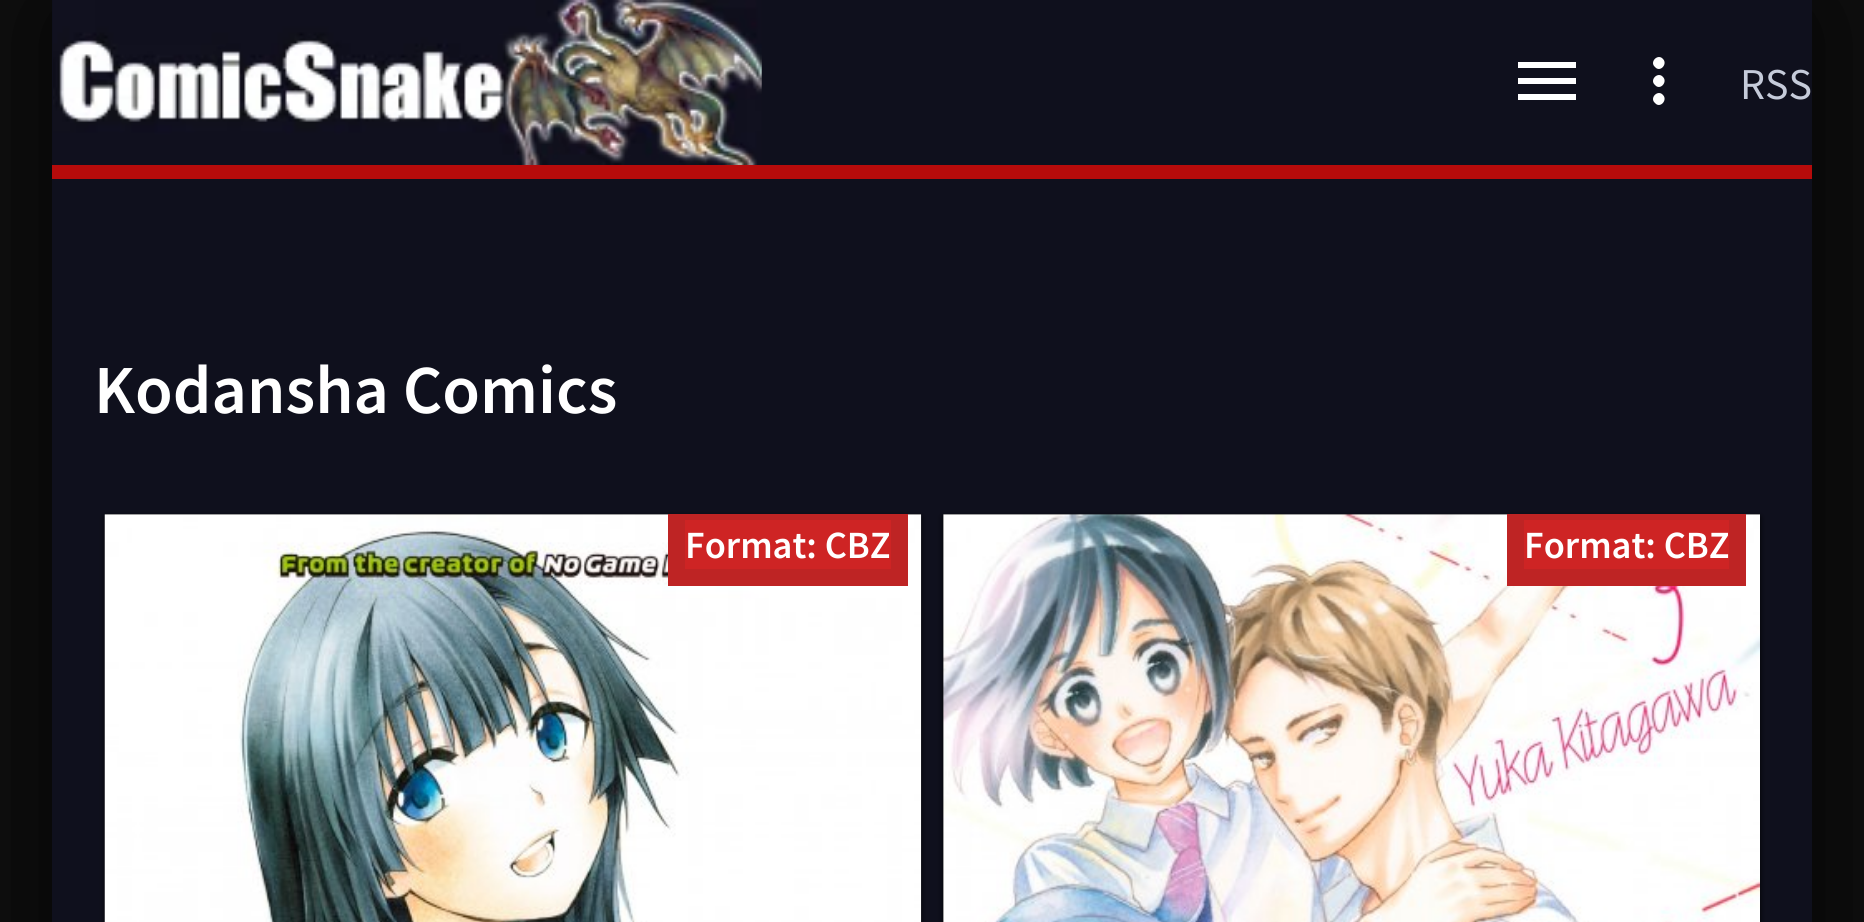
import math
import cairo

surface = cairo.ImageSurface(cairo.Format.RGB24, 1864, 922)
ctx = cairo.Context(surface)
options = cairo.FontOptions()
options.set_hint_metrics(cairo.HintMetrics.OFF)
options.set_hint_style(cairo.HintStyle.NONE)
ctx.set_font_options(options)
ctx.set_miter_limit(4)


def ink(r, g, b):
    ctx.set_source_rgb(r / 255, g / 255, b / 255)


def write(x, y, s, family, size, color, bold=False, italic=False):
    ctx.select_font_face(family, cairo.FontSlant.ITALIC if italic else cairo.FontSlant.NORMAL, cairo.FontWeight.BOLD if bold else cairo.FontWeight.NORMAL)
    ctx.set_font_size(size)
    ink(*color)
    ctx.move_to(x, y)
    ctx.show_text(s)


def block(x, y, w, h, *color):
    ink(*color)
    ctx.rectangle(x, y, w, h)
    ctx.fill()


def round_path(x, y, w, h, r):
    ctx.new_sub_path()
    for i, (u, v) in enumerate([(x + w - r, y + h - r), (x + r, y + h - r), (x + r, y + r), (x + w - r, y + r)]):
        ctx.arc(u, v, r, i * math.pi / 2, (i + 1) * math.pi / 2)
    ctx.close_path()


def blur_box(x, y, w, h, r, blur, alpha):
    ctx.push_group_with_content(cairo.Content.ALPHA)
    ctx.set_operator(cairo.Operator.SOURCE)
    for i in range(15, -16, -2):
        e = blur * i / 6
        if min(w, h) + 2 * e > 0:
            ctx.set_source_rgba(0, 0, 0, alpha * math.erfc((i - 1) / 8.5) / 2)
            round_path(x - e, y - e, w + 2 * e, h + 2 * e, max(0, min(r + e + blur * .6, min(w, h) / 2 + e)))
            ctx.fill()
    ctx.mask(ctx.pop_group())


def paste(path, x, y, w, h):
    ctx.save()
    ctx.set_source_surface(cairo.ImageSurface.create_from_png(path), x, y)
    ctx.rectangle(x, y, w, h)
    ctx.fill()
    ctx.restore()


s1 = dict(family="Source Sans Pro", size=44, color=(197, 203, 218))
s2 = dict(family="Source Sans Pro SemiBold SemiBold", size=68.75, color=(255, 255, 255))
s3 = dict(family="Source Sans Pro SemiBold SemiBold", size=38.5, color=(255, 255, 255))

ink(17, 17, 17)
ctx.paint()
ink(0, 0, 0)
blur_box(52, 0, 1760, 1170, 0, 82.5, 0.9)
block(52, 0, 1760, 922, 15, 16, 29)
block(52, 165, 1760, 14, 182, 11, 11)
paste("pic1.png", 53, 0, 709, 165)
ink(255, 255, 255)
ctx.new_path()
ctx.move_to(1518, 100)
ctx.line_to(1518, 94)
ctx.line_to(1576, 94)
ctx.line_to(1576, 100)
ctx.close_path()
ctx.move_to(1518, 84)
ctx.line_to(1518, 78)
ctx.line_to(1576, 78)
ctx.line_to(1576, 84)
ctx.close_path()
ctx.move_to(1518, 62)
ctx.line_to(1576, 62)
ctx.line_to(1576, 68)
ctx.line_to(1518, 68)
ctx.close_path()
ctx.fill()
ctx.new_path()
ctx.move_to(1663, 59)
ctx.curve_to(1668, 64, 1660, 73, 1655, 67)
ctx.curve_to(1649, 62, 1658, 53, 1663, 59)
ctx.close_path()
ctx.move_to(1663, 95)
ctx.curve_to(1668, 100, 1660, 109, 1655, 103)
ctx.curve_to(1649, 98, 1658, 89, 1663, 95)
ctx.close_path()
ctx.move_to(1663, 77)
ctx.curve_to(1668, 82, 1660, 91, 1655, 85)
ctx.curve_to(1649, 80, 1658, 71, 1663, 77)
ctx.close_path()
ctx.fill()
write(1740, 99, "RSS", **s1)
write(94, 413, "Kodansha Comics", **s2)
ink(0, 0, 0)
blur_box(105, 517, 816, 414, 0, 3, 0.85)
block(105, 514, 816, 1, 34, 34, 34)
paste("pic2.png", 104, 514, 818, 408)
block(685, 520, 206, 49, 206, 36, 36)
ctx.save()
ctx.rectangle(105, 514, 816, 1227)
ctx.clip()
ctx.rectangle(676.5, 511.5, 223, 66)
ink(190, 36, 36)
ctx.set_line_width(17)
ctx.stroke()
ctx.restore()
write(685, 558, "Format: CBZ", **s3)
ink(0, 0, 0)
blur_box(943, 517, 817, 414, 0, 3, 0.85)
block(943, 514, 817, 408, 34, 34, 34)
paste("pic3.png", 943, 514, 817, 408)
block(1524, 520, 205, 49, 206, 36, 36)
ctx.save()
ctx.rectangle(943, 514, 817, 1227)
ctx.clip()
ctx.rectangle(1515.5, 511.5, 222, 66)
ink(190, 36, 36)
ctx.set_line_width(17)
ctx.stroke()
ctx.restore()
write(1524, 558, "Format: CBZ", **s3)
surface.write_to_png("screenshot.png")
